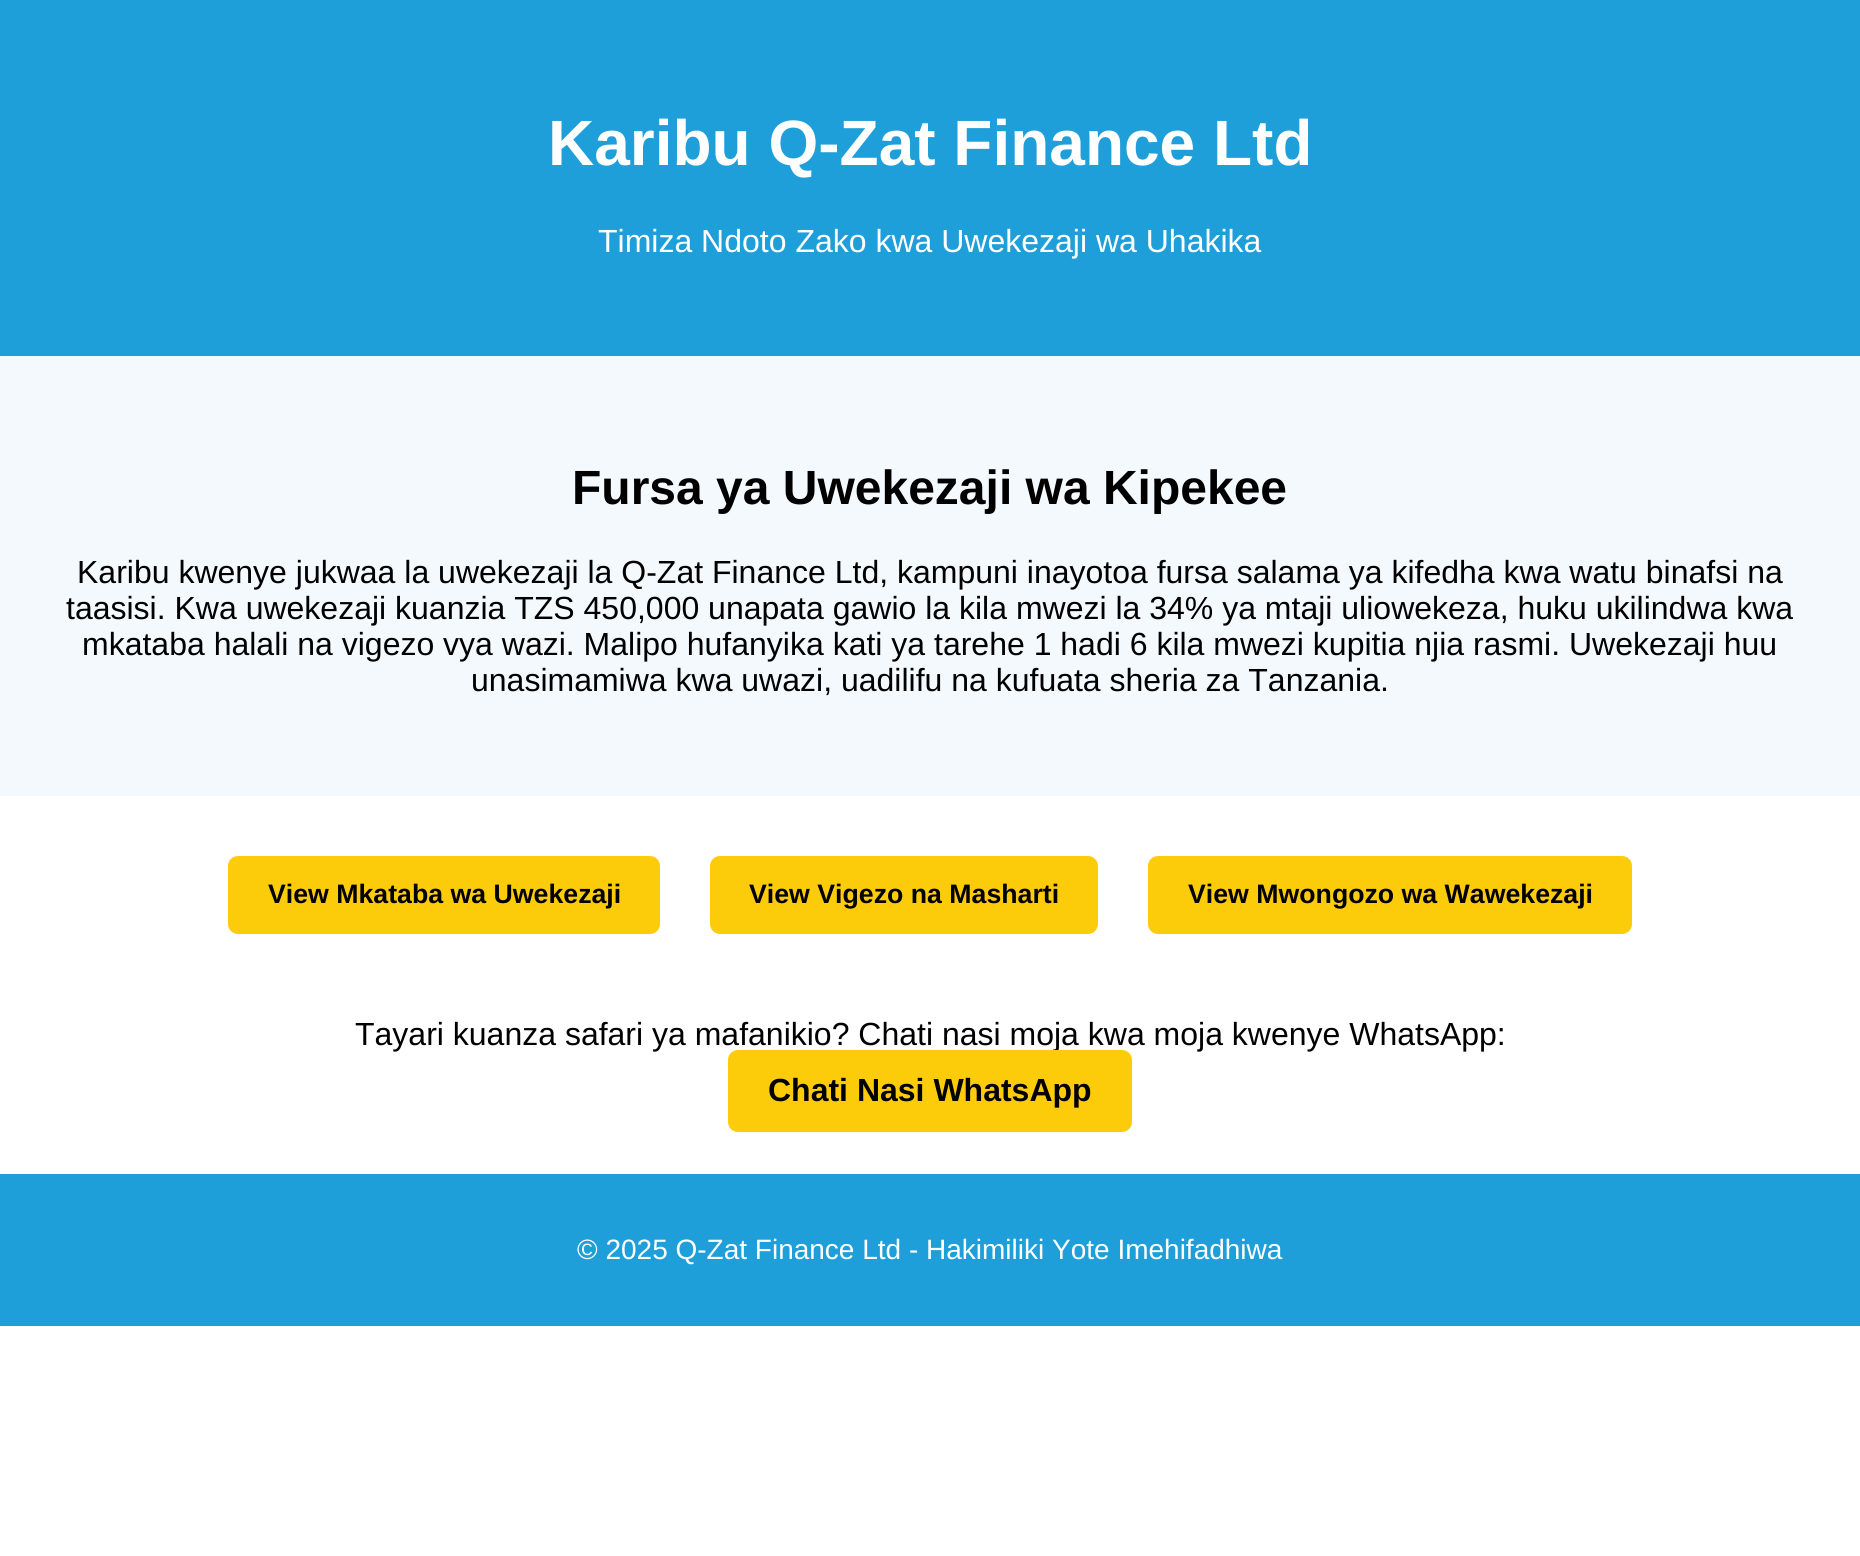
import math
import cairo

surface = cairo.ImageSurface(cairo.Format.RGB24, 1860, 1556)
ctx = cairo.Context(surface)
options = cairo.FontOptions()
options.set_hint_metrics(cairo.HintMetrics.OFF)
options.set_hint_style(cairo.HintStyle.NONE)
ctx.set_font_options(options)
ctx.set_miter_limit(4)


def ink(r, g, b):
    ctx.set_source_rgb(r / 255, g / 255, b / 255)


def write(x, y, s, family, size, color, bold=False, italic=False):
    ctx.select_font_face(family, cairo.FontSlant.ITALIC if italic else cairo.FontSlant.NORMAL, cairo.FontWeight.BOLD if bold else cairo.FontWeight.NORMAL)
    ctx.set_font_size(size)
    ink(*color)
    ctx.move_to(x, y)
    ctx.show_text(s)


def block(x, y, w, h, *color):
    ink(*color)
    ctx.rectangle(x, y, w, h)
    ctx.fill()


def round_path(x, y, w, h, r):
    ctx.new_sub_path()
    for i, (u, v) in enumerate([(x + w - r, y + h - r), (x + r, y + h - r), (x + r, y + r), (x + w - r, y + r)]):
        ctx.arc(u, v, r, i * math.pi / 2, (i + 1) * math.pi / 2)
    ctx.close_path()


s1 = dict(family="Liberation Sans", size=64, color=(255, 255, 255), bold=True)
s2 = dict(family="Liberation Sans", size=32, color=(255, 255, 255))
s3 = dict(family="Liberation Sans", size=48, color=(0, 0, 0), bold=True)
s4 = dict(family="Liberation Sans", size=32, color=(0, 0, 0))
s5 = dict(family="Liberation Sans", size=26.7, color=(0, 0, 0), bold=True)
s6 = dict(family="Liberation Sans", size=32, color=(0, 0, 0), bold=True)
s7 = dict(family="Liberation Sans", size=28, color=(255, 255, 255))

ink(255, 255, 255)
ctx.paint()
block(0, 0, 1860, 356, 31, 159, 217)
write(548, 165, "Karibu Q-Zat Finance Ltd", **s1)
write(598, 252, "Timiza Ndoto Zako kwa Uwekezaji wa Uhakika", **s2)
block(0, 356, 1860, 440, 244, 249, 253)
write(572, 504, "Fursa ya Uwekezaji wa Kipekee", **s3)
write(77, 583, "Karibu kwenye jukwaa la uwekezaji la Q-Zat Finance Ltd, kampuni inayotoa fursa salama ya kifedha kwa watu binafsi na", **s4)
write(66, 619, "taasisi. Kwa uwekezaji kuanzia TZS 450,000 unapata gawio la kila mwezi la 34% ya mtaji uliowekeza, huku ukilindwa kwa", **s4)
write(82, 655, "mkataba halali na vigezo vya wazi. Malipo hufanyika kati ya tarehe 1 hadi 6 kila mwezi kupitia njia rasmi. Uwekezaji huu", **s4)
write(471, 691, "unasimamiwa kwa uwazi, uadilifu na kufuata sheria za Tanzania.", **s4)
ink(252, 204, 10)
round_path(228, 856, 432, 78, 10)
ctx.fill()
write(268, 903, "View Mkataba wa Uwekezaji", **s5)
ink(252, 204, 10)
round_path(710, 856, 388, 78, 10)
ctx.fill()
write(749, 903, "View Vigezo na Masharti", **s5)
ink(252, 204, 10)
round_path(1148, 856, 484, 78, 10)
ctx.fill()
write(1188, 903, "View Mwongozo wa Wawekezaji", **s5)
write(355, 1045, "Tayari kuanza safari ya mafanikio? Chati nasi moja kwa moja kwenye WhatsApp:", **s4)
ink(252, 204, 10)
round_path(728, 1050, 404, 82, 10)
ctx.fill()
write(768, 1101, "Chati Nasi WhatsApp", **s6)
block(0, 1174, 1860, 152, 31, 159, 217)
write(577, 1259, "© 2025 Q-Zat Finance Ltd - Hakimiliki Yote Imehifadhiwa", **s7)
surface.write_to_png("screenshot.png")
